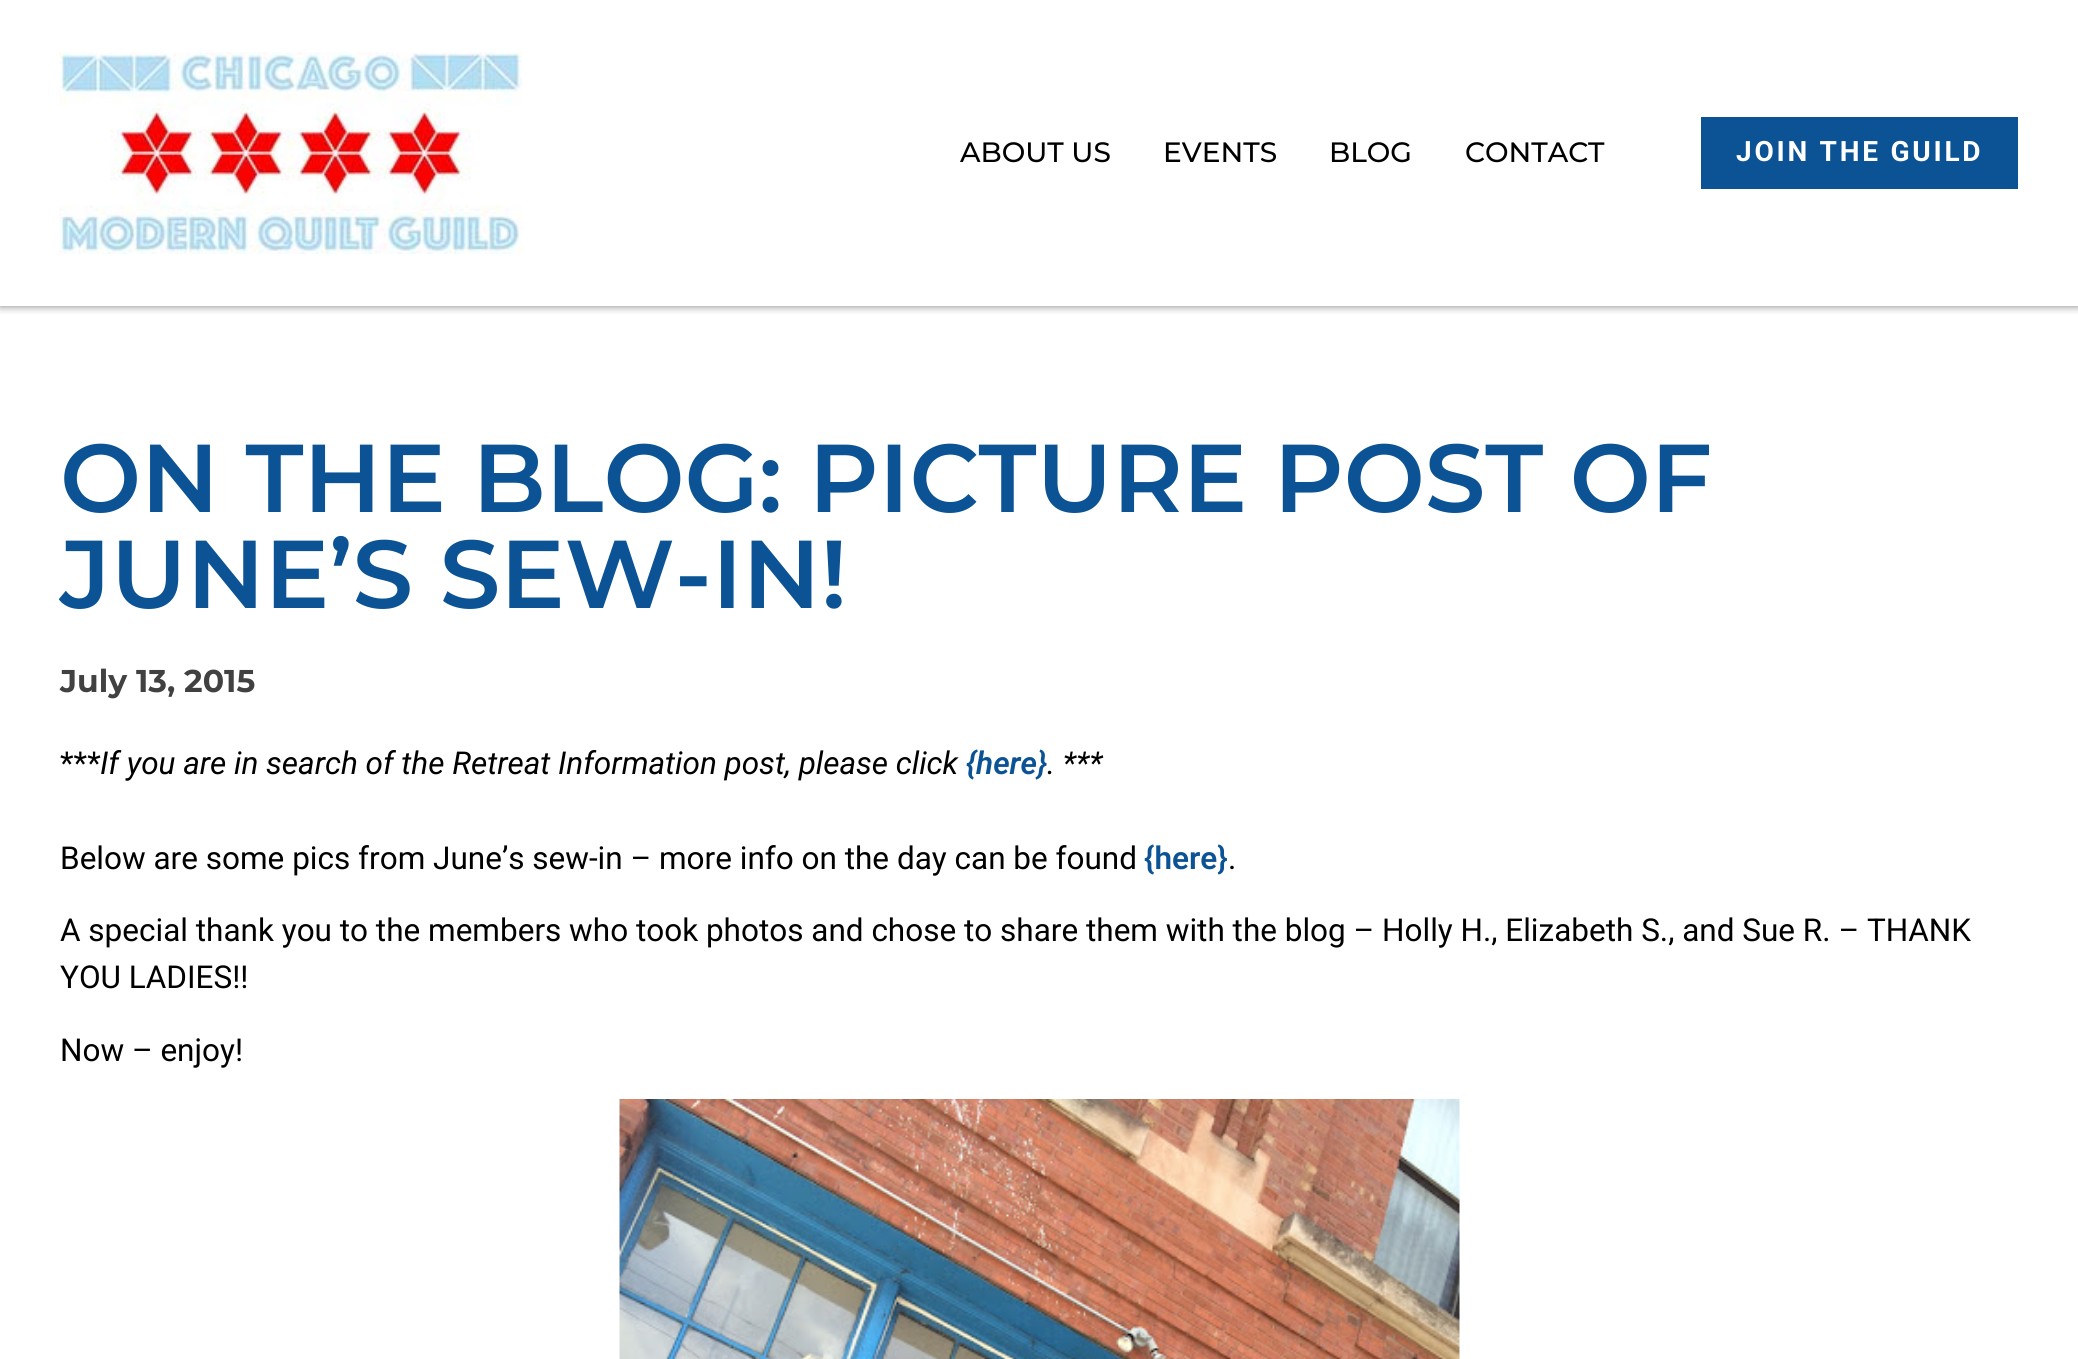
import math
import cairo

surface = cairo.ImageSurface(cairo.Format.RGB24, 2078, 1359)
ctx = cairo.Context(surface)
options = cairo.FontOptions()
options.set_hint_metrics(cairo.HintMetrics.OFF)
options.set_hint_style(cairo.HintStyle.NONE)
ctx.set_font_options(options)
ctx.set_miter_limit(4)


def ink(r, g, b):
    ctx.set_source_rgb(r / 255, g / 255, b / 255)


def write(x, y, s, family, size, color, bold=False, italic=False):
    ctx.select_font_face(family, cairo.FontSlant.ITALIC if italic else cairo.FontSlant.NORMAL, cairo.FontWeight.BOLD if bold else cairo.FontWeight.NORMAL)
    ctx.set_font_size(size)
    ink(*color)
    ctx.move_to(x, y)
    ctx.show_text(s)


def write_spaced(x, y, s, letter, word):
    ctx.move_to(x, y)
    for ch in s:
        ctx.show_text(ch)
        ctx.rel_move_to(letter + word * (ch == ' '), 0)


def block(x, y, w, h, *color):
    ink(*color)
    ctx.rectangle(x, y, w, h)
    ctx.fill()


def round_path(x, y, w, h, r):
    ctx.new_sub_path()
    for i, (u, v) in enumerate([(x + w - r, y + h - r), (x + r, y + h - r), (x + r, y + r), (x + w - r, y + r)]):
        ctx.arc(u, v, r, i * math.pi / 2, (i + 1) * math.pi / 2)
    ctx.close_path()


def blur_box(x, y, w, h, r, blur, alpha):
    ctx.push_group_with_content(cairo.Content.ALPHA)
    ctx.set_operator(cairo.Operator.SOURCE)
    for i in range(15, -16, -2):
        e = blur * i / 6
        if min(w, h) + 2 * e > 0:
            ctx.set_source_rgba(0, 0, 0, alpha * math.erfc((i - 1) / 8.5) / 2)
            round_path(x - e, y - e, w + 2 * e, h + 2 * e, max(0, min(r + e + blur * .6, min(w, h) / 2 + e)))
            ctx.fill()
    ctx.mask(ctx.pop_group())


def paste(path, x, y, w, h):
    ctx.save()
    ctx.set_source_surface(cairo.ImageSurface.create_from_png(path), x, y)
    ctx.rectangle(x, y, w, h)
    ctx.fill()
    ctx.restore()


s1 = dict(family="Montserrat Medium", size=28, color=(0, 0, 0))
s2 = dict(family="Montserrat SemiBold", size=96.25, color=(11, 83, 148))
s3 = dict(family="Montserrat", size=31.5, color=(65, 65, 65), bold=True)
s4 = dict(family="Roboto", size=31.5, color=(0, 0, 0))
s5 = dict(family="Roboto", size=31.5, color=(0, 0, 0), italic=True)
s6 = dict(family="Roboto SemiBold", size=31.5, color=(11, 83, 148), italic=True)
s7 = dict(family="Roboto SemiBold", size=31.5, color=(11, 83, 148))

ink(255, 255, 255)
ctx.paint()
ctx.save()
ctx.rectangle(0, 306, 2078, 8)
ctx.clip()
ink(0, 0, 0)
blur_box(0, 0, 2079, 306, 0, 4.5, 0.5)
ctx.restore()
paste("pic1.png", 59, 52, 464, 202)
write(960, 162, "ABOUT US", **s1)
write(1163, 162, "EVENTS", **s1)
write(1329, 162, "BLOG", **s1)
write(1465, 162, "CONTACT", **s1)
block(1701, 117, 317, 72, 11, 83, 148)
ctx.select_font_face("Roboto", cairo.FontSlant.NORMAL, cairo.FontWeight.BOLD)
ink(255, 255, 255)
write_spaced(1736, 161, "JOIN THE GUILD", 2.75, 0)
write(60, 512, "ON THE BLOG: PICTURE POST OF", **s2)
write(60, 608, "JUNE’S SEW-IN!", **s2)
write(60, 692, "July 13, 2015", **s3)
write(60, 774, "***", **s4)
write(100, 774, "If you are in search of the Retreat Information post, please click", **s5)
write(966, 774, "{here}", **s6)
write(1047, 774, ". ***", **s5)
write(60, 869, "Below are some pics from June’s sew-in – more info on the day can be found", **s4)
write(1144, 869, "{here}", **s7)
write(1228, 869, ".", **s4)
write(60, 941, "A special thank you to the members who took photos and chose to share them with the blog – Holly H., Elizabeth S., and Sue R. – THANK", **s4)
write(60, 988, "YOU LADIES!!", **s4)
write(60, 1061, "Now – enjoy!", **s4)
paste("pic2.png", 619, 1099, 841, 260)
surface.write_to_png("screenshot.png")
